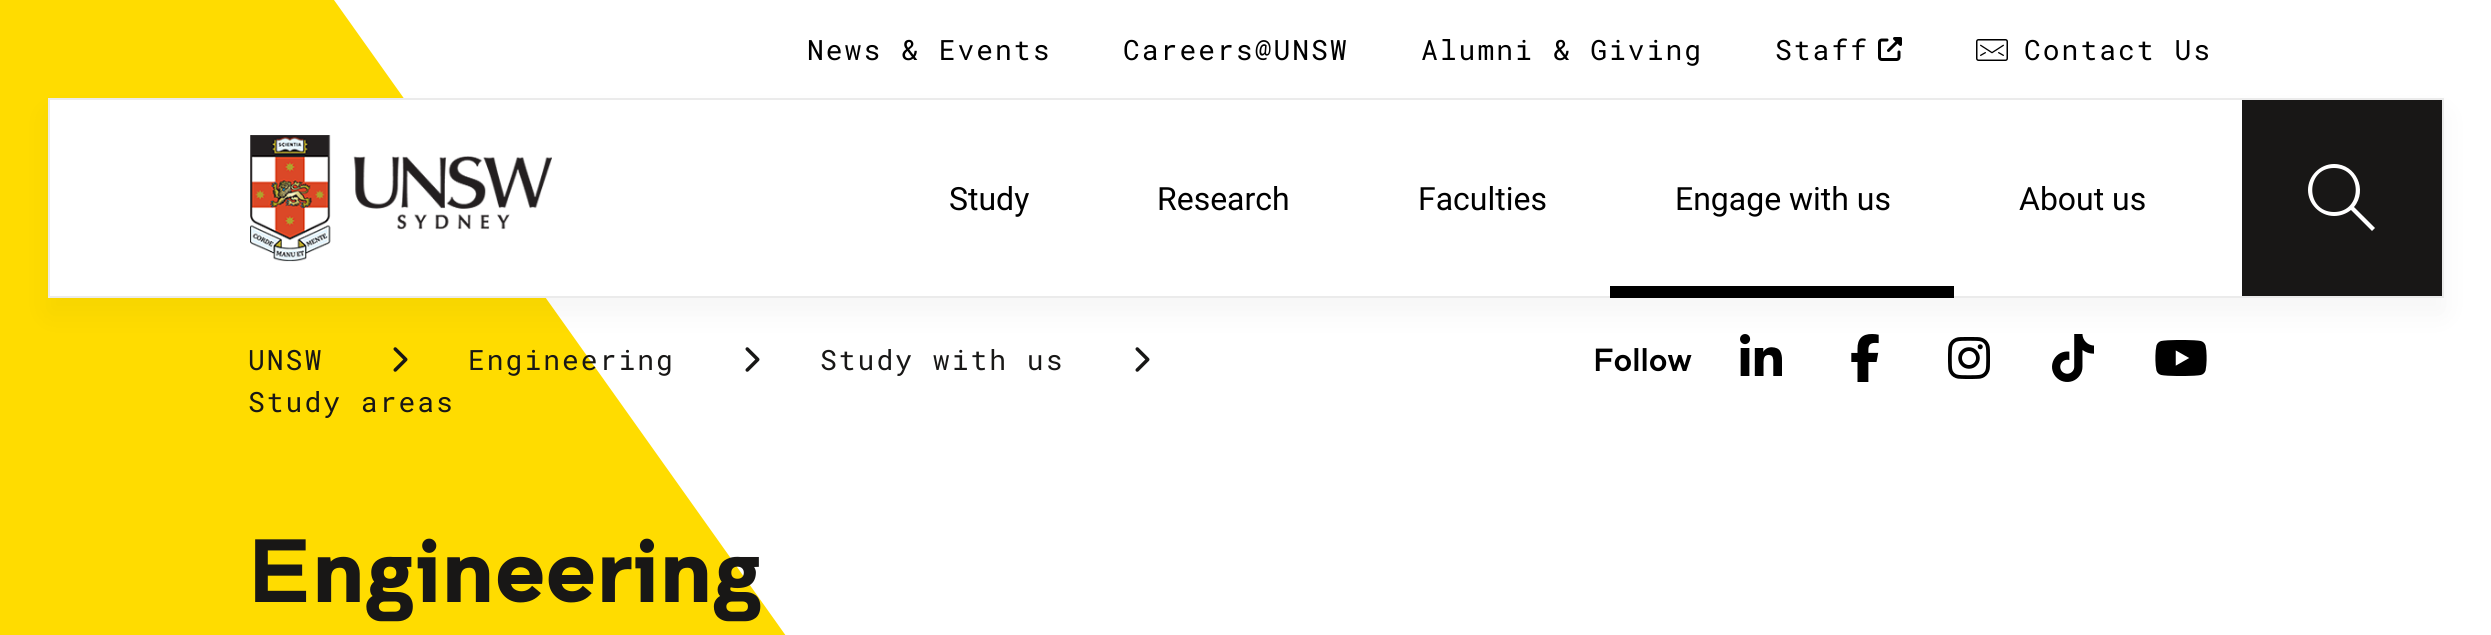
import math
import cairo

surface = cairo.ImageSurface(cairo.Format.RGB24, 2491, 635)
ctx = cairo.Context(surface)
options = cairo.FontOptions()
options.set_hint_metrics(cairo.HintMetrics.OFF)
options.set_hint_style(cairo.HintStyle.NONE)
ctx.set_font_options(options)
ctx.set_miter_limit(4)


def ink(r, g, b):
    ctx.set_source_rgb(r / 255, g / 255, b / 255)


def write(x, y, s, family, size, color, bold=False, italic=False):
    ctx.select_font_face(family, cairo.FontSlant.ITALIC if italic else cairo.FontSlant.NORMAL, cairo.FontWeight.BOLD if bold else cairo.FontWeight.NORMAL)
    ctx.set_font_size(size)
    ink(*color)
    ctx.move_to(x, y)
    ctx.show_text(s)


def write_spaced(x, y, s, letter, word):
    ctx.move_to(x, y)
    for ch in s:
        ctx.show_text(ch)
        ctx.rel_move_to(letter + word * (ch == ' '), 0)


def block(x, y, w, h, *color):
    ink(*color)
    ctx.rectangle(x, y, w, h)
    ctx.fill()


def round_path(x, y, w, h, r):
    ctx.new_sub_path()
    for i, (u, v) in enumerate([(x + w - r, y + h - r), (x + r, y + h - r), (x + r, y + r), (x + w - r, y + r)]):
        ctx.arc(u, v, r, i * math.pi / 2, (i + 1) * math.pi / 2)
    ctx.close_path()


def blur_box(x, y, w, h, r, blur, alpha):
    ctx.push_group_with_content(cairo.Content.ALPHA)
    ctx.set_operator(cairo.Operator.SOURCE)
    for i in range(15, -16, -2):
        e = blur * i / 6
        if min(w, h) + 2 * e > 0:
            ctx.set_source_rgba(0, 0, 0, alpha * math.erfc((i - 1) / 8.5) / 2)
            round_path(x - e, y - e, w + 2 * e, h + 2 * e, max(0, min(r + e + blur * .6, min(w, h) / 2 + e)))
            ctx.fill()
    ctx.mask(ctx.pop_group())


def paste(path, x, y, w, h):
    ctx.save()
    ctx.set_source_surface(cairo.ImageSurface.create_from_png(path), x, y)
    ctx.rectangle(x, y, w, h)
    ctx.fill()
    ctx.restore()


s1 = dict(family="Roboto", size=32, color=(0, 0, 0))
s2 = dict(family="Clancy", size=32, color=(0, 0, 0))
s3 = dict(family="Clancy", size=89.5, color=(24, 23, 22), bold=True)

ink(255, 255, 255)
ctx.paint()
ink(255, 220, 0)
ctx.new_path()
ctx.move_to(-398, 0)
ctx.line_to(-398, 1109)
ctx.line_to(503, 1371)
ctx.line_to(914, 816)
ctx.line_to(334, 0)
ctx.close_path()
ctx.fill()
ctx.select_font_face("Roboto Mono")
ctx.set_font_size(28)
ink(0, 0, 0)
write_spaced(807, 60, "News & Events", 2, 0)
write_spaced(1123, 60, "Careers@UNSW", 2, 0)
paste("pic4.png", 393, 347, 15, 25)
paste("pic5.png", 745, 347, 15, 25)
paste("pic5.png", 1135, 347, 15, 25)
paste("pic6.png", 1740, 334, 42, 42)
paste("pic7.png", 1851, 334, 28, 48)
paste("pic8.png", 1948, 337, 42, 42)
paste("pic9.png", 2052, 334, 42, 48)
paste("pic10.png", 2155, 340, 52, 36)
ink(0, 0, 0)
blur_box(48, 114, 2396, 200, 0, 16, 0.04)
ink(0, 0, 0)
write_spaced(1421, 60, "Alumni & Giving", 2, 0)
write_spaced(1775, 60, "Staff", 2, 0)
paste("pic1.png", 1878, 37, 24, 24)
paste("pic2.png", 1976, 39, 32, 22)
write_spaced(2024, 60, "Contact Us", 2, 0)
block(50, 100, 2192, 196, 255, 255, 255)
ctx.rectangle(49, 99, 2394, 198)
ink(235, 235, 235)
ctx.stroke()
paste("pic3.png", 250, 135, 302, 127)
write(949, 210, "Study", **s1)
write(1157, 210, "Research", **s1)
write(1418, 210, "Faculties", **s1)
block(1610, 286, 344, 12, 0, 0, 0)
write(1675, 210, "Engage with us", **s1)
write(2019, 210, "About us", **s1)
block(2242, 100, 200, 196, 24, 23, 22)
ink(255, 255, 255)
ctx.set_fill_rule(cairo.FillRule.EVEN_ODD)
ctx.new_path()
ctx.move_to(2334, 164)
ctx.curve_to(2356, 164, 2368, 190, 2354, 207)
ctx.line_to(2375, 228)
ctx.line_to(2372, 231)
ctx.line_to(2351, 210)
ctx.curve_to(2346, 214, 2340, 216, 2334, 216)
ctx.curve_to(2320, 216, 2308, 204, 2308, 190)
ctx.curve_to(2308, 176, 2320, 164, 2334, 164)
ctx.close_path()
ctx.move_to(2334, 168)
ctx.curve_to(2305, 168, 2305, 212, 2334, 212)
ctx.curve_to(2363, 212, 2363, 168, 2334, 168)
ctx.close_path()
ctx.fill()
ctx.select_font_face("Roboto Mono")
ctx.set_font_size(28)
ink(24, 23, 22)
write_spaced(248, 370, "UNSW", 2, 0)
write_spaced(468, 370, "Engineering", 2, 0)
write_spaced(820, 370, "Study with us", 2, 0)
write_spaced(248, 412, "Study areas", 2, 0)
write(1593, 371, "Follow", **s2)
write(248, 602, "Engineering", **s3)
surface.write_to_png("screenshot.png")
